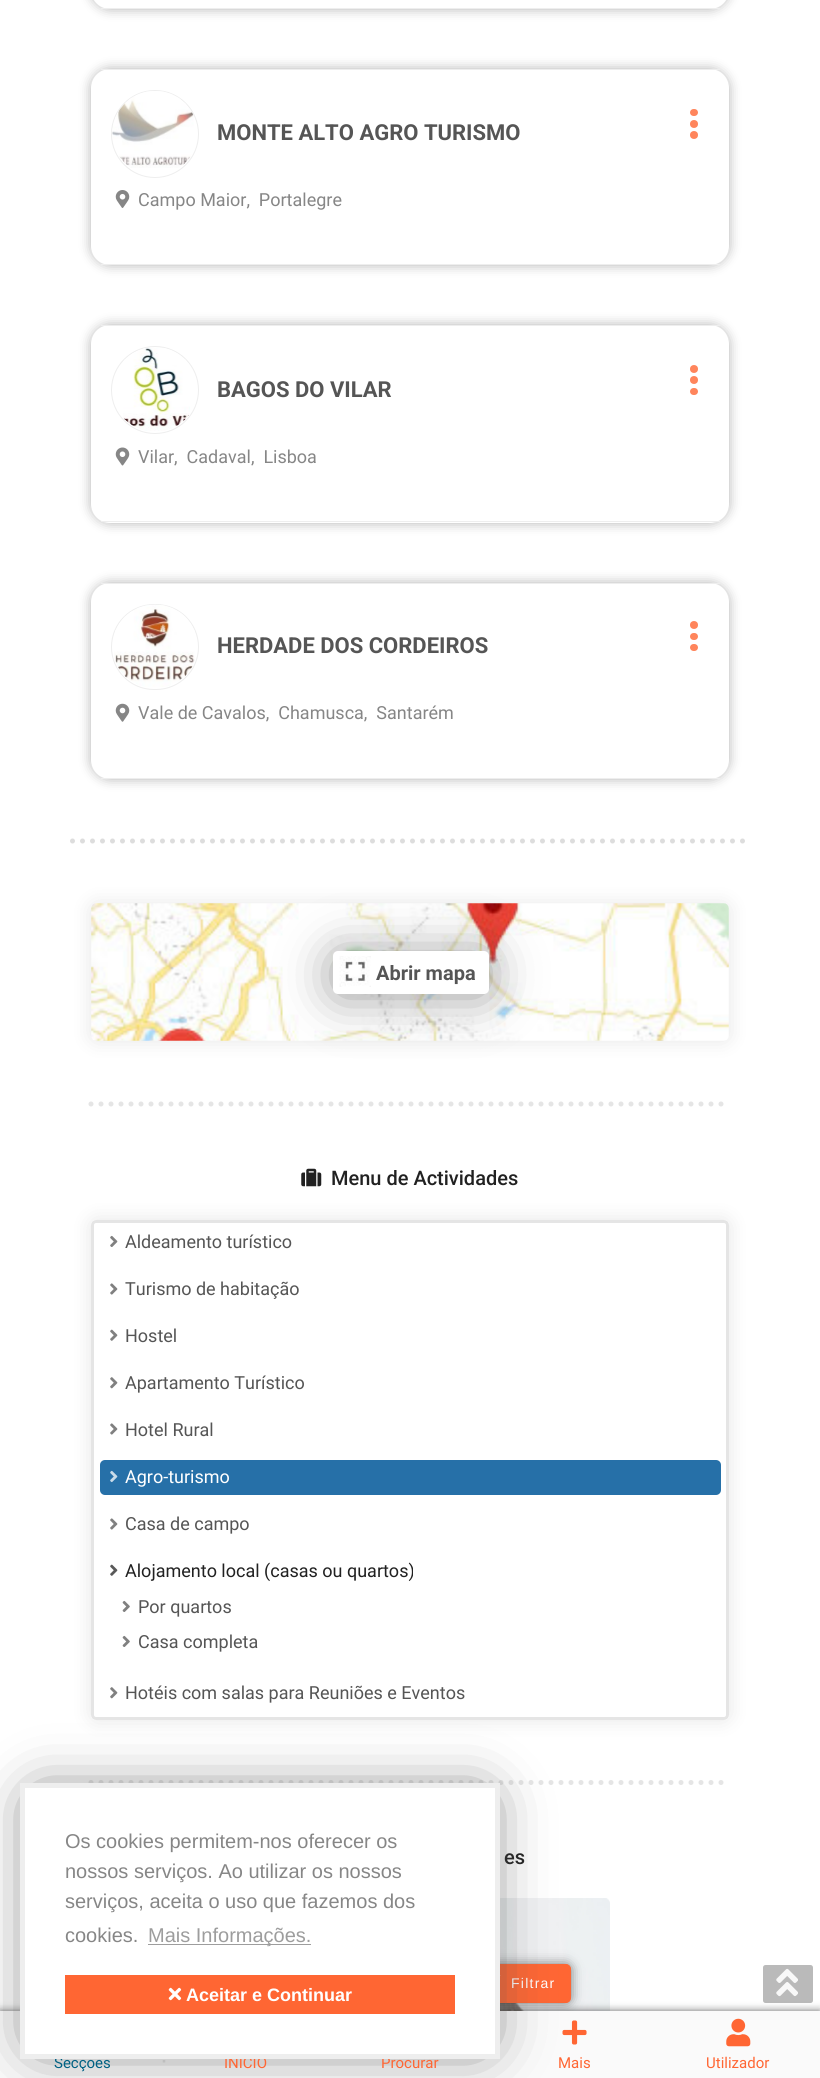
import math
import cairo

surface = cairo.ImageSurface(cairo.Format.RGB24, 820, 2078)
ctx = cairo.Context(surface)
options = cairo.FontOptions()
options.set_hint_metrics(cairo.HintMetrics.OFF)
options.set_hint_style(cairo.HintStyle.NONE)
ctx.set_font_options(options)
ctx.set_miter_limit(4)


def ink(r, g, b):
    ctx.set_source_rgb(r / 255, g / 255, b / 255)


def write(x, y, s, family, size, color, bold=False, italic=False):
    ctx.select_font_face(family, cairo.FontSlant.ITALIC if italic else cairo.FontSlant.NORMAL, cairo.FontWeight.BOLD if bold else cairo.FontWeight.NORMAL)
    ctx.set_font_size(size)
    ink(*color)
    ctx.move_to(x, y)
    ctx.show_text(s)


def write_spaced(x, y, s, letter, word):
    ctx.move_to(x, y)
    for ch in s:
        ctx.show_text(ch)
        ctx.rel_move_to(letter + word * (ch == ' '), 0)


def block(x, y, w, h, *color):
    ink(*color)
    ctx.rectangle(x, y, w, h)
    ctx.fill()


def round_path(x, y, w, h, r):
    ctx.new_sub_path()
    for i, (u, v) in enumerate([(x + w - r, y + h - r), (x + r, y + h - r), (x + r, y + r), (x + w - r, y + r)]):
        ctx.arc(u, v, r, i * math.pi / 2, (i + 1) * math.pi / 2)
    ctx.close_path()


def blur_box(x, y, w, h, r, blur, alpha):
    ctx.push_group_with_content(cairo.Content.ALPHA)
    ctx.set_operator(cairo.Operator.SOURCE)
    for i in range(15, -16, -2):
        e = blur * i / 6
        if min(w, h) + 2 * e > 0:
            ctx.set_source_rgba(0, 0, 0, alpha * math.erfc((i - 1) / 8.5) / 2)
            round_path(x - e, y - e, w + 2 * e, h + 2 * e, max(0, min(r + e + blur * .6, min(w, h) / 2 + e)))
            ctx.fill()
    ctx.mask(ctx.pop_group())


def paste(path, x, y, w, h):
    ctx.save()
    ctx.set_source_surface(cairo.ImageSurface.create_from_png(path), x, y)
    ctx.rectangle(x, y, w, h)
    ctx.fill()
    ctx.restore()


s1 = dict(family="Roboto", size=22, color=(85, 85, 85), bold=True)
s2 = dict(family="Roboto", size=18, color=(134, 134, 134))
s3 = dict(family="Roboto", size=20, color=(85, 85, 85), bold=True)
s4 = dict(family="Roboto Medium", size=20, color=(33, 33, 33))
s5 = dict(family="Roboto", size=18, color=(85, 85, 85))
s6 = dict(family="Roboto", size=18, color=(255, 255, 255))
s7 = dict(family="Roboto", size=18, color=(33, 33, 33))
s8 = dict(family="Roboto", size=15, color=(0, 97, 131))
s9 = dict(family="Roboto", size=15, color=(255, 102, 51))
s10 = dict(family="Liberation Sans", size=20, color=(134, 134, 134))
s11 = dict(family="Liberation Sans", size=20, color=(157, 157, 157))
s12 = dict(family="Liberation Sans", size=18, color=(255, 255, 255), bold=True)

ink(255, 255, 255)
ctx.paint()
ink(0, 0, 0)
blur_box(91, -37, 638, 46, 19, 6, 0.3)
ink(255, 255, 255)
round_path(91, -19, 638, 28, 19)
ctx.fill()
block(101, 8, 619, 1, 238, 238, 238)
ink(0, 0, 0)
blur_box(91, 69, 638, 196, 19, 6, 0.3)
ink(255, 255, 255)
round_path(91, 69, 638, 196, 19)
ctx.fill()
block(101, 69, 619, 1, 238, 238, 238)
block(101, 264, 619, 1, 238, 238, 238)
ctx.arc(155, 134, 43.5, 0, 2 * math.pi)
ctx.set_line_width(1)
ctx.stroke()
paste("pic1.png", 112, 91, 82, 77)
write(217, 140, "MONTE ALTO AGRO TURISMO", **s1)
ink(255, 133, 92)
round_path(690, 109, 8, 7, 3.5)
ctx.fill()
ctx.arc(694, 124, 4, 0, 2 * math.pi)
ctx.fill()
ctx.arc(694, 135, 4, 0, 2 * math.pi)
ctx.fill()
paste("pic2.png", 115, 190, 15, 18)
write(138, 206, "Campo Maior,  Portalegre", **s2)
ink(0, 0, 0)
blur_box(91, 325, 638, 198, 19, 6, 0.3)
ink(255, 255, 255)
round_path(91, 325, 638, 198, 19)
ctx.fill()
block(101, 325, 619, 1, 238, 238, 238)
block(101, 521, 619, 1, 238, 238, 238)
ctx.arc(155, 390, 43.5, 0, 2 * math.pi)
ctx.stroke()
paste("pic3.png", 123, 348, 67, 83)
write(217, 397, "BAGOS DO VILAR", **s1)
ink(255, 133, 92)
ctx.new_path()
ctx.arc(694, 369, 4, 0, 2 * math.pi)
ctx.fill()
ctx.arc(694, 380, 4, 0, 2 * math.pi)
ctx.fill()
round_path(690, 388, 8, 7, 3.5)
ctx.fill()
paste("pic4.png", 115, 447, 15, 19)
write(138, 463, "Vilar,  Cadaval,  Lisboa", **s2)
ink(0, 0, 0)
blur_box(91, 583, 638, 196, 19, 6, 0.3)
ink(255, 255, 255)
round_path(91, 583, 638, 196, 19)
ctx.fill()
block(101, 583, 619, 1, 238, 238, 238)
block(101, 778, 619, 1, 238, 238, 238)
round_path(111.5, 604.5, 87, 85, 42.5)
ctx.stroke()
paste("pic5.png", 114, 604, 81, 83)
write(217, 653, "HERDADE DOS CORDEIROS", **s1)
ink(255, 133, 92)
ctx.new_path()
ctx.arc(694, 625, 4, 0, 2 * math.pi)
ctx.fill()
round_path(690, 633, 8, 7, 3.5)
ctx.fill()
round_path(690, 644, 8, 7, 3.5)
ctx.fill()
paste("pic6.png", 115, 703, 15, 19)
write(138, 719, "Vale de Cavalos,  Chamusca,  Santarém", **s2)
paste("pic18.png", 500, 1898, 110, 113)
ink(0, 0, 0)
blur_box(470, 1964, 101, 39, 5, 6, 0.5)
ink(255, 102, 51)
round_path(470.5, 1964.5, 100, 38, 4.5)
ctx.fill_preserve()
ctx.stroke()
paste("pic7.png", 500, 1975, 1, 1)
ctx.select_font_face("Liberation Sans")
ctx.set_font_size(14)
ink(255, 255, 255)
write_spaced(511, 1988, "Filtrar", 1.25, 0)
ctx.new_path()
ctx.move_to(72.5, 841)
ctx.line_to(747.5, 841)
ink(221, 221, 221)
ctx.set_line_width(5)
ctx.set_line_cap(cairo.LineCap.ROUND)
ctx.set_dash([0, 10])
ctx.stroke()
ink(0, 0, 0)
blur_box(91, 904, 638, 137, 5, 9.5, 0.1)
paste("pic8.png", 91, 903, 638, 138)
blur_box(333, 954, 156, 42, 5, 25, 0.4)
ink(255, 255, 255)
round_path(333, 951, 156, 43, 5)
ctx.fill()
paste("pic9.png", 339, 956, 32, 31)
write(376, 980, "Abrir mapa", **s3)
ctx.new_path()
ctx.move_to(91, 1104)
ctx.line_to(729, 1104)
ink(229, 229, 229)
ctx.stroke()
paste("pic10.png", 301, 1168, 21, 19)
write(331, 1185, "Menu de Actividades", **s4)
ctx.save()
ctx.set_fill_rule(cairo.FillRule.EVEN_ODD)
ctx.new_path()
ctx.move_to(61, 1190)
ctx.line_to(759, 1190)
ctx.line_to(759, 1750)
ctx.line_to(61, 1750)
ctx.close_path()
ctx.move_to(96, 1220)
ctx.line_to(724, 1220)
ctx.curve_to(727, 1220, 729, 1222, 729, 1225)
ctx.line_to(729, 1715)
ctx.curve_to(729, 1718, 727, 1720, 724, 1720)
ctx.line_to(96, 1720)
ctx.curve_to(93, 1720, 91, 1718, 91, 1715)
ctx.line_to(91, 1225)
ctx.curve_to(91, 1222, 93, 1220, 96, 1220)
ctx.close_path()
ctx.clip()
ink(0, 0, 0)
blur_box(91, 1220, 638, 500, 5, 9.5, 0.1)
ctx.restore()
round_path(92.5, 1221.5, 635, 497, 3.5)
ink(229, 229, 229)
ctx.set_line_width(3)
ctx.set_line_cap(cairo.LineCap.BUTT)
ctx.set_dash([])
ctx.stroke()
paste("pic11.png", 110, 1235, 8, 12)
write(125, 1248, "Aldeamento turístico", **s5)
paste("pic12.png", 110, 1283, 8, 12)
write(125, 1295, "Turismo de habitação", **s5)
paste("pic13.png", 110, 1329, 8, 12)
write(125, 1342, "Hostel", **s5)
paste("pic14.png", 110, 1377, 8, 12)
write(125, 1389, "Apartamento Turístico", **s5)
paste("pic12.png", 110, 1423, 8, 12)
write(125, 1436, "Hotel Rural", **s5)
ink(38, 112, 168)
round_path(100, 1460, 621, 35, 5)
ctx.fill()
paste("pic15.png", 110, 1470, 8, 13)
write(125, 1483, "Agro-turismo", **s6)
paste("pic12.png", 110, 1518, 8, 12)
write(125, 1530, "Casa de campo", **s5)
paste("pic16.png", 110, 1564, 8, 12)
write(125, 1577, "Alojamento local (casas ou quartos)", **s7)
paste("pic17.png", 122, 1600, 8, 12)
write(138, 1613, "Por quartos", **s5)
paste("pic17.png", 122, 1635, 8, 12)
write(138, 1648, "Casa completa", **s5)
paste("pic14.png", 110, 1687, 8, 12)
write(125, 1699, "Hotéis com salas para Reuniões e Eventos", **s5)
ctx.new_path()
ctx.move_to(91, 1782.5)
ctx.line_to(729, 1782.5)
ink(229, 229, 229)
ctx.set_line_width(5)
ctx.set_line_cap(cairo.LineCap.ROUND)
ctx.set_dash([0, 10])
ctx.stroke()
write(504, 1864, "es", **s4)
ink(186, 186, 186)
round_path(763, 1965, 50, 38, 2.5)
ctx.fill()
ink(0, 0, 0)
blur_box(0, 2011, 820, 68, 0, 4, 0.6)
block(0, 2011, 820, 67, 250, 250, 250)
ctx.new_path()
ctx.move_to(164, 2025)
ctx.line_to(164, 2065)
ink(225, 225, 225)
ctx.set_line_width(2.5)
ctx.set_line_cap(cairo.LineCap.BUTT)
ctx.set_dash([2.5, 2.5])
ctx.stroke()
paste("pic21.png", 562, 2020, 25, 25)
ink(85, 85, 85)
blur_box(39, 1801, 442, 239, 0, 31, 1)
write(54, 2068, "Secções", **s8)
write(224, 2068, "INÍCIO", **s9)
write(381, 2068, "Procurar", **s9)
ink(255, 255, 255)
ctx.rectangle(22.5, 1785.5, 475, 271)
ctx.fill_preserve()
ink(238, 238, 238)
ctx.set_line_width(5)
ctx.set_dash([])
ctx.stroke()
write(65, 1848, "Os cookies permitem-nos oferecer os", **s10)
write(65, 1878, "nossos serviços. Ao utilizar os nossos", **s10)
write(65, 1908, "serviços, aceita o uso que fazemos dos", **s10)
write(65, 1942, "cookies.", **s10)
block(148, 1944, 163, 1, 157, 157, 157)
write(148, 1942, "Mais Informações.", **s11)
block(65, 1975, 390, 39, 255, 102, 51)
paste("pic19.png", 168, 1987, 14, 14)
write(186, 2001, "Aceitar e Continuar", **s12)
paste("pic20.png", 776, 1968, 22, 29)
write(558, 2068, "Mais", **s9)
paste("pic22.png", 726, 2018, 25, 29)
write(706, 2068, "Utilizador", **s9)
surface.write_to_png("screenshot.png")
